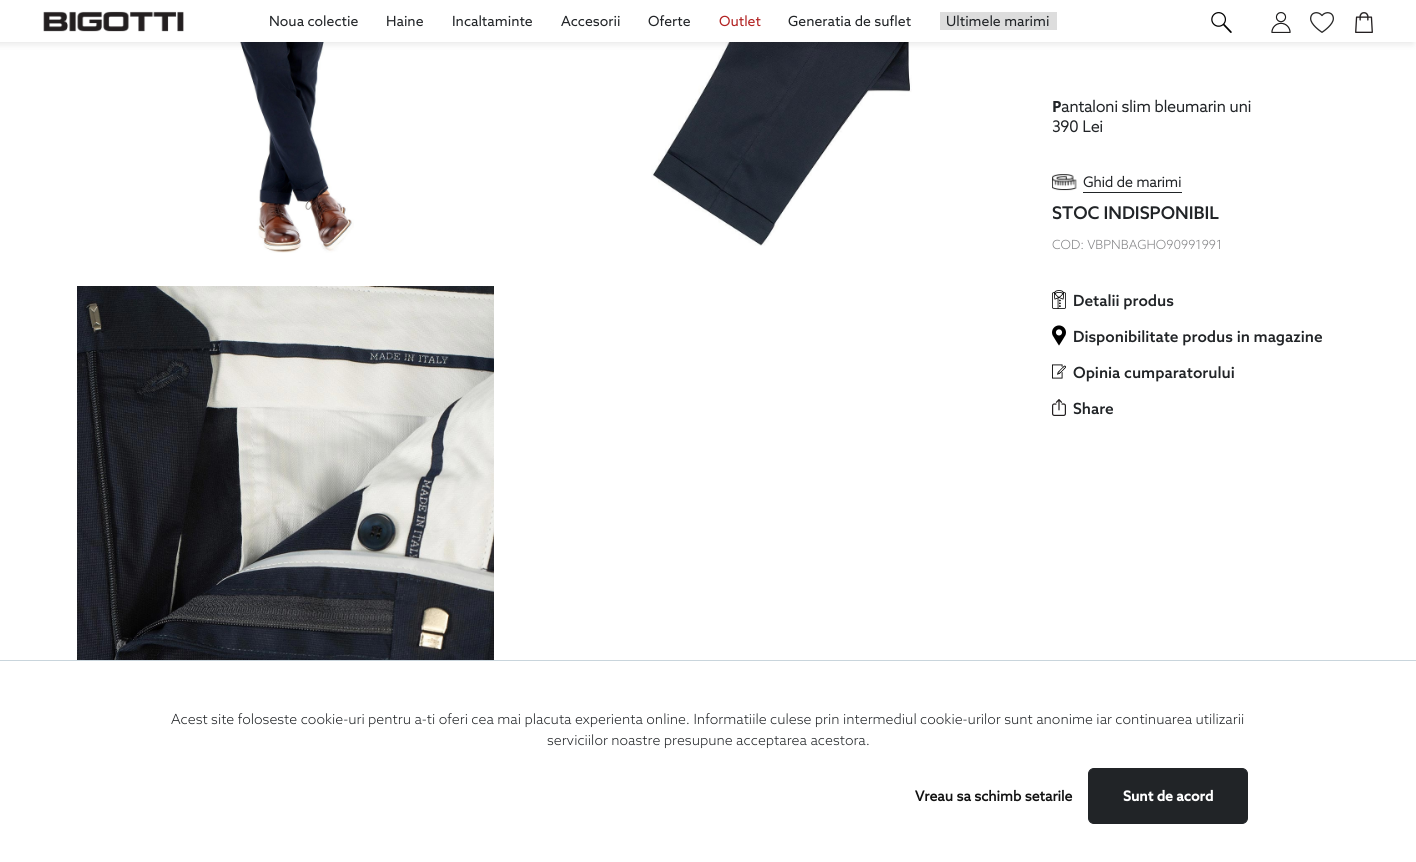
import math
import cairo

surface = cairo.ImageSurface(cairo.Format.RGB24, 1416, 862)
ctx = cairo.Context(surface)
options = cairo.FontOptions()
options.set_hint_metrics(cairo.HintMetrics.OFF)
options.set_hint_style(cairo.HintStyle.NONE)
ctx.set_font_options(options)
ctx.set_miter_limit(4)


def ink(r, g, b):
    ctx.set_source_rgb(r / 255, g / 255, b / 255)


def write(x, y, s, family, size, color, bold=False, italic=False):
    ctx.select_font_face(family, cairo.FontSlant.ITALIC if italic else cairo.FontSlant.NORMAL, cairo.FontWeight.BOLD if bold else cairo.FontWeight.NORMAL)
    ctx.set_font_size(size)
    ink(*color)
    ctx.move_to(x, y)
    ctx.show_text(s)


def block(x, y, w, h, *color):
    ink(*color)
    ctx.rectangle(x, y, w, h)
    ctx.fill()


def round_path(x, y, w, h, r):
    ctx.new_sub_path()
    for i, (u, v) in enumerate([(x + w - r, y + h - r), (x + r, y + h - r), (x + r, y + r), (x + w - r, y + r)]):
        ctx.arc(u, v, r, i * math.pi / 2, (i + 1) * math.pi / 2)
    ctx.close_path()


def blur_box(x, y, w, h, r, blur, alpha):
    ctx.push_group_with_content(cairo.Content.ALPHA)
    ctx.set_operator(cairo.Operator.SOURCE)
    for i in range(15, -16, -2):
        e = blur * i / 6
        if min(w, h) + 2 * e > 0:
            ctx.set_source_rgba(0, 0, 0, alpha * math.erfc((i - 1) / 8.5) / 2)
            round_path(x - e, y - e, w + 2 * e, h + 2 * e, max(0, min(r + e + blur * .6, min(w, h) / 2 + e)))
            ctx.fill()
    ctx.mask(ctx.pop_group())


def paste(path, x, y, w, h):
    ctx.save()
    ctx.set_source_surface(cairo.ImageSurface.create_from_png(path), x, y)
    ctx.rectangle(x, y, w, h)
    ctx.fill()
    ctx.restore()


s1 = dict(family="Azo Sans", size=14, color=(33, 36, 39))
s2 = dict(family="Azo Sans", size=14, color=(178, 34, 34))
s3 = dict(family="Noto Sans", size=15.4, color=(33, 36, 39), bold=True)
s4 = dict(family="Azo Sans", size=15.4, color=(33, 36, 39), bold=True)
s5 = dict(family="Azo Sans", size=14, color=(33, 36, 39), bold=True)
s6 = dict(family="Azo Sans Medium", size=17.5, color=(33, 36, 39))
s7 = dict(family="Azo Sans Light", size=12.6, color=(129, 130, 132))
s8 = dict(family="Azo Sans Medium", size=15.4, color=(33, 36, 39))
s9 = dict(family="Azo Sans Light", size=14, color=(33, 36, 39))
s10 = dict(family="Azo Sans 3", size=14, color=(17, 17, 17), bold=True)
s11 = dict(family="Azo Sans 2", size=14, color=(255, 255, 255), bold=True)

ink(255, 255, 255)
ctx.paint()
paste("pic6.png", 229, 42, 134, 211)
paste("pic7.png", 651, 42, 261, 204)
ink(0, 0, 0)
blur_box(-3, 2, 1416, 42, 0, 3.5, 0.1)
block(0, 0, 1416, 42, 255, 255, 255)
paste("pic1.png", 43, 11, 141, 21)
write(269, 26, "Noua colectie", **s1)
write(386, 26, "Haine", **s1)
write(452, 26, "Incaltaminte", **s1)
write(561, 26, "Accesorii", **s1)
write(648, 26, "Oferte", **s1)
write(719, 26, "Outlet", **s2)
write(788, 26, "Generatia de suflet", **s1)
block(940, 12, 117, 18, 221, 221, 221)
write(946, 26, "Ultimele marimi", **s1)
paste("pic2.png", 1211, 12, 21, 21)
paste("pic3.png", 1271, 12, 20, 21)
paste("pic4.png", 1310, 12, 24, 21)
paste("pic5.png", 1355, 12, 18, 21)
paste("pic8.png", 77, 286, 417, 374)
write(1052, 112, "P", **s3)
write(1061, 112, "antaloni slim bleumarin uni", **s4)
write(1052, 132, "390 Lei", **s4)
paste("pic9.png", 1052, 174, 25, 17)
write(1083, 187, "Ghid de marimi", **s5)
block(1083, 192, 99, 1, 33, 36, 39)
write(1052, 219, "STOC INDISPONIBIL", **s6)
write(1052, 249, "COD: VBPNBAGHO90991991", **s7)
paste("pic10.png", 1052, 290, 14, 19)
write(1073, 306, "Detalii produs", **s8)
paste("pic11.png", 1052, 325, 14, 21)
write(1073, 342, "Disponibilitate produs in magazine", **s8)
paste("pic12.png", 1052, 364, 14, 15)
write(1073, 378, "Opinia cumparatorului", **s8)
paste("pic13.png", 1052, 399, 14, 17)
write(1073, 414, "Share", **s8)
block(0, 660, 1416, 1, 201, 213, 220)
write(171, 724, "Acest site foloseste cookie-uri pentru a-ti oferi cea mai placuta experienta online. Informatiile culese prin intermediul cookie-urilor sunt anonime iar continuarea utilizarii", **s9)
write(547, 745, "serviciilor noastre presupune acceptarea acestora.", **s9)
write(915, 801, "Vreau sa schimb setarile", **s10)
ink(33, 36, 39)
round_path(1088.5, 768.5, 159, 55, 5.5)
ctx.fill_preserve()
ctx.set_line_width(1)
ctx.stroke()
write(1123, 801, "Sunt de acord", **s11)
surface.write_to_png("screenshot.png")
